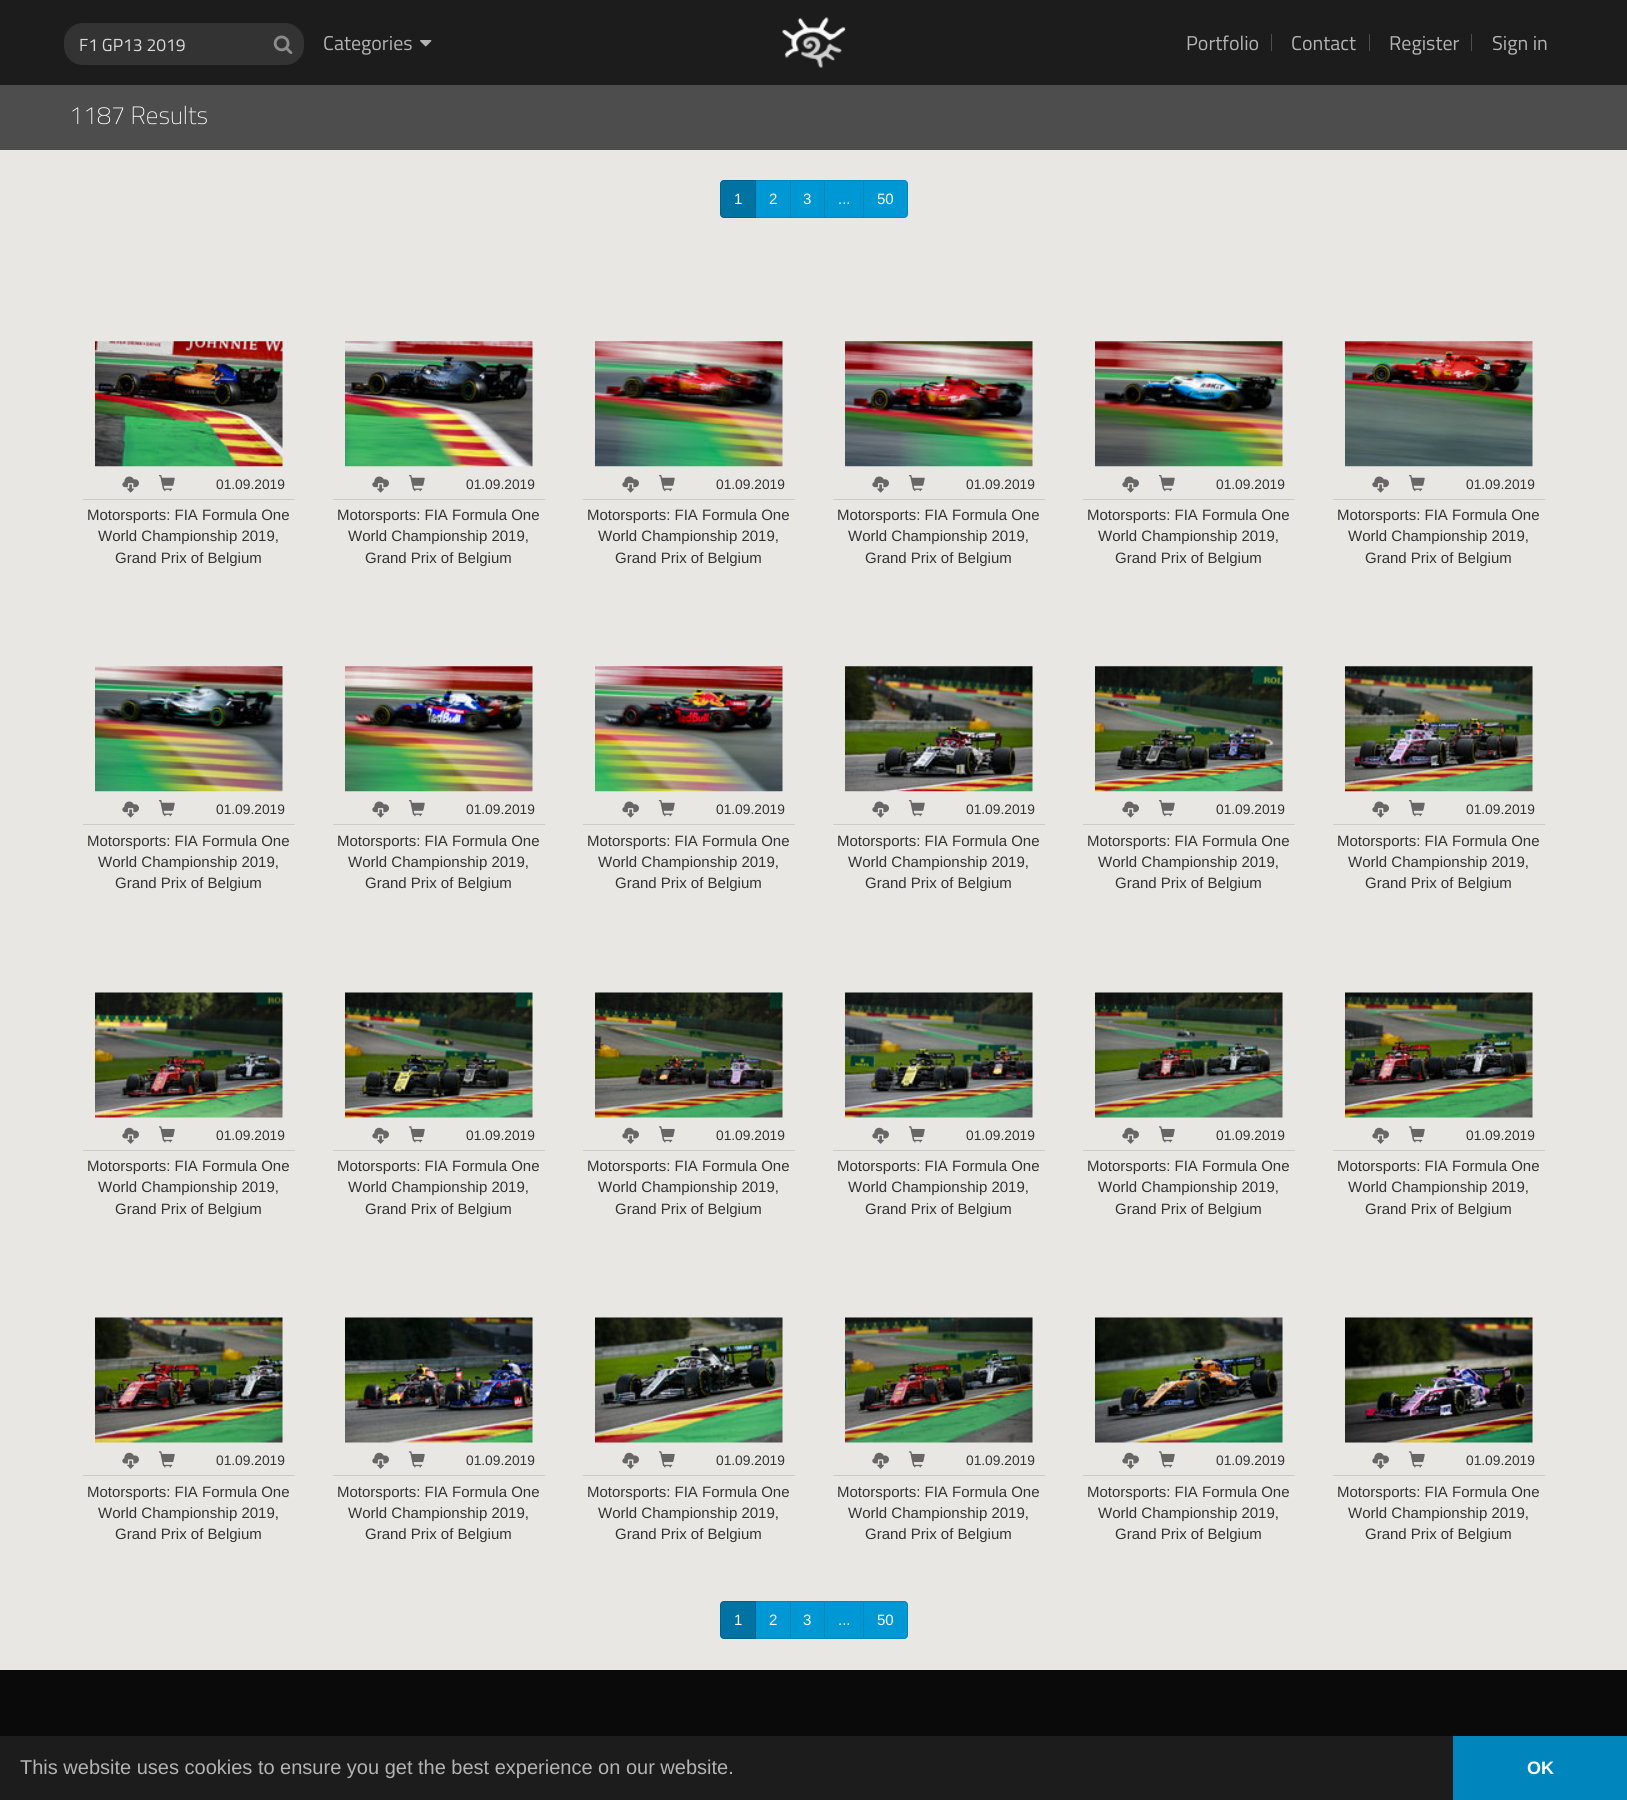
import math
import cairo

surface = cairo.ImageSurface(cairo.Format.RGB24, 1627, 1800)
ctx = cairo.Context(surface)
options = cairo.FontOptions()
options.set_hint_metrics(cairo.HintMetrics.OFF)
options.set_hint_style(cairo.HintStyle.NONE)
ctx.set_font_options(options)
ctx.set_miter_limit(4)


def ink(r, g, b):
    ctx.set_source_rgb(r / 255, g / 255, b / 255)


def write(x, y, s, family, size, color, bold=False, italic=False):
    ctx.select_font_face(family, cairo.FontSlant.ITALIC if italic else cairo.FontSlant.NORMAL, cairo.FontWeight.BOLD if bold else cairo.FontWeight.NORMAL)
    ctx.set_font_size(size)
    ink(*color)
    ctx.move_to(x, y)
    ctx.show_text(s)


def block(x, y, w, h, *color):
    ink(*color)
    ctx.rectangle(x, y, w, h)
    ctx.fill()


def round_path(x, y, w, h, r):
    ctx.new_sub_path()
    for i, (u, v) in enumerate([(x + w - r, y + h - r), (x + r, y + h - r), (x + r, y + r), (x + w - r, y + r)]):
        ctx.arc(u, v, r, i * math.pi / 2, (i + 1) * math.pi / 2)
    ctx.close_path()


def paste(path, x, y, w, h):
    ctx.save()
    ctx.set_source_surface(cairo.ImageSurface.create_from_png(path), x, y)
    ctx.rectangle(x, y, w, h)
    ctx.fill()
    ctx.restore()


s1 = dict(family="Titillium Web", size=17.5, color=(217, 217, 217))
s2 = dict(family="Titillium Web", size=20, color=(179, 179, 179))
s3 = dict(family="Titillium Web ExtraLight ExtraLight", size=25, color=(255, 255, 255))
s4 = dict(family="Liberation Sans", size=15, color=(255, 255, 255))
s5 = dict(family="Liberation Sans", size=13.75, color=(51, 51, 51))
s6 = dict(family="Liberation Sans", size=15, color=(51, 51, 51))
s7 = dict(family="Liberation Sans", size=20, color=(179, 179, 179))
s8 = dict(family="Liberation Sans", size=18, color=(255, 255, 255), bold=True)

ink(233, 231, 228)
ctx.paint()
block(0, 0, 1627, 85, 28, 28, 28)
ink(51, 51, 51)
round_path(64, 23, 240, 42, 19)
ctx.fill()
ctx.set_source_rgba(0, 0, 0, 0.07)
ctx.new_path()
ctx.move_to(82, 24)
ctx.line_to(285, 24)
ctx.curve_to(295, 24, 304, 32, 304, 42)
ctx.curve_to(304, 32, 295, 23, 285, 23)
ctx.line_to(83, 23)
ctx.curve_to(73, 23, 64, 32, 64, 42)
ctx.curve_to(64, 32, 72, 24, 82, 24)
ctx.close_path()
ctx.fill()
write(79, 51, "F1 GP13 2019", **s1)
paste("pic1.png", 273, 35, 20, 19)
write(323, 50, "Categories", **s2)
paste("pic2.png", 420, 40, 12, 7)
paste("pic3.png", 782, 17, 64, 51)
write(1186, 50, "Portfolio", **s2)
block(1271, 34, 1, 17, 77, 77, 77)
write(1291, 50, "Contact", **s2)
block(1369, 34, 1, 17, 77, 77, 77)
write(1389, 50, "Register", **s2)
block(1471, 34, 1, 17, 77, 77, 77)
write(1492, 50, "Sign in", **s2)
block(0, 85, 1627, 65, 77, 77, 77)
write(69, 124, "1187 Results", **s3)
ink(0, 151, 213)
ctx.rectangle(755.5, 180.5, 35, 37)
ctx.fill_preserve()
ink(0, 133, 188)
ctx.set_line_width(1)
ctx.stroke()
ink(0, 115, 162)
ctx.new_path()
ctx.move_to(724, 180.5)
ctx.line_to(755.5, 180.5)
ctx.line_to(755.5, 217.5)
ctx.line_to(724, 217.5)
ctx.curve_to(722, 217.5, 720.5, 216, 720.5, 214)
ctx.line_to(720.5, 184)
ctx.curve_to(720.5, 182, 722, 180.5, 724, 180.5)
ctx.close_path()
ctx.fill_preserve()
ink(0, 97, 137)
ctx.stroke()
write(734, 204, "1", **s4)
write(769, 204, "2", **s4)
ink(0, 151, 213)
ctx.rectangle(790.5, 180.5, 34, 37)
ctx.fill_preserve()
ink(0, 133, 188)
ctx.stroke()
write(803, 204, "3", **s4)
ink(0, 151, 213)
ctx.rectangle(824.5, 180.5, 39, 37)
ctx.fill_preserve()
ink(0, 133, 188)
ctx.stroke()
write(838, 204, "...", **s4)
ink(0, 151, 213)
ctx.new_path()
ctx.move_to(863.5, 180.5)
ctx.line_to(904, 180.5)
ctx.curve_to(906, 180.5, 907.5, 182, 907.5, 184)
ctx.line_to(907.5, 214)
ctx.curve_to(907.5, 216, 906, 217.5, 904, 217.5)
ctx.line_to(863.5, 217.5)
ctx.close_path()
ctx.fill_preserve()
ink(0, 133, 188)
ctx.stroke()
write(877, 204, "50", **s4)
paste("pic4.png", 95, 341, 188, 126)
block(83, 499, 212, 1, 204, 204, 204)
paste("pic5.png", 122, 476, 17, 17)
paste("pic6.png", 158, 475, 17, 17)
write(216, 489, "01.09.2019", **s5)
write(87, 520, "Motorsports: FIA Formula One", **s6)
write(98, 541, "World Championship 2019,", **s6)
write(115, 563, "Grand Prix of Belgium", **s6)
paste("pic7.png", 345, 341, 188, 126)
block(333, 499, 212, 1, 204, 204, 204)
paste("pic5.png", 372, 476, 17, 17)
paste("pic6.png", 408, 475, 17, 17)
write(466, 489, "01.09.2019", **s5)
write(337, 520, "Motorsports: FIA Formula One", **s6)
write(348, 541, "World Championship 2019,", **s6)
write(365, 563, "Grand Prix of Belgium", **s6)
paste("pic8.png", 595, 341, 188, 126)
block(583, 499, 212, 1, 204, 204, 204)
paste("pic5.png", 622, 476, 17, 17)
paste("pic6.png", 658, 475, 17, 17)
write(716, 489, "01.09.2019", **s5)
write(587, 520, "Motorsports: FIA Formula One", **s6)
write(598, 541, "World Championship 2019,", **s6)
write(615, 563, "Grand Prix of Belgium", **s6)
paste("pic9.png", 845, 341, 188, 126)
block(833, 499, 212, 1, 204, 204, 204)
paste("pic5.png", 872, 476, 17, 17)
paste("pic6.png", 908, 475, 17, 17)
write(966, 489, "01.09.2019", **s5)
write(837, 520, "Motorsports: FIA Formula One", **s6)
write(848, 541, "World Championship 2019,", **s6)
write(865, 563, "Grand Prix of Belgium", **s6)
paste("pic10.png", 1095, 341, 188, 126)
block(1083, 499, 212, 1, 204, 204, 204)
paste("pic5.png", 1122, 476, 17, 17)
paste("pic6.png", 1158, 475, 17, 17)
write(1216, 489, "01.09.2019", **s5)
write(1087, 520, "Motorsports: FIA Formula One", **s6)
write(1098, 541, "World Championship 2019,", **s6)
write(1115, 563, "Grand Prix of Belgium", **s6)
paste("pic11.png", 1345, 341, 188, 126)
block(1333, 499, 212, 1, 204, 204, 204)
paste("pic5.png", 1372, 476, 17, 17)
paste("pic6.png", 1408, 475, 17, 17)
write(1466, 489, "01.09.2019", **s5)
write(1337, 520, "Motorsports: FIA Formula One", **s6)
write(1348, 541, "World Championship 2019,", **s6)
write(1365, 563, "Grand Prix of Belgium", **s6)
paste("pic12.png", 95, 666, 188, 126)
block(83, 824, 212, 1, 204, 204, 204)
paste("pic5.png", 122, 801, 17, 17)
paste("pic6.png", 158, 800, 17, 17)
write(216, 814, "01.09.2019", **s5)
write(87, 846, "Motorsports: FIA Formula One", **s6)
write(98, 867, "World Championship 2019,", **s6)
write(115, 888, "Grand Prix of Belgium", **s6)
paste("pic13.png", 345, 666, 188, 126)
block(333, 824, 212, 1, 204, 204, 204)
paste("pic5.png", 372, 801, 17, 17)
paste("pic6.png", 408, 800, 17, 17)
write(466, 814, "01.09.2019", **s5)
write(337, 846, "Motorsports: FIA Formula One", **s6)
write(348, 867, "World Championship 2019,", **s6)
write(365, 888, "Grand Prix of Belgium", **s6)
paste("pic14.png", 595, 666, 188, 126)
block(583, 824, 212, 1, 204, 204, 204)
paste("pic5.png", 622, 801, 17, 17)
paste("pic6.png", 658, 800, 17, 17)
write(716, 814, "01.09.2019", **s5)
write(587, 846, "Motorsports: FIA Formula One", **s6)
write(598, 867, "World Championship 2019,", **s6)
write(615, 888, "Grand Prix of Belgium", **s6)
paste("pic15.png", 845, 666, 188, 126)
block(833, 824, 212, 1, 204, 204, 204)
paste("pic5.png", 872, 801, 17, 17)
paste("pic6.png", 908, 800, 17, 17)
write(966, 814, "01.09.2019", **s5)
write(837, 846, "Motorsports: FIA Formula One", **s6)
write(848, 867, "World Championship 2019,", **s6)
write(865, 888, "Grand Prix of Belgium", **s6)
paste("pic16.png", 1095, 666, 188, 126)
block(1083, 824, 212, 1, 204, 204, 204)
paste("pic5.png", 1122, 801, 17, 17)
paste("pic6.png", 1158, 800, 17, 17)
write(1216, 814, "01.09.2019", **s5)
write(1087, 846, "Motorsports: FIA Formula One", **s6)
write(1098, 867, "World Championship 2019,", **s6)
write(1115, 888, "Grand Prix of Belgium", **s6)
paste("pic17.png", 1345, 666, 188, 126)
block(1333, 824, 212, 1, 204, 204, 204)
paste("pic5.png", 1372, 801, 17, 17)
paste("pic6.png", 1408, 800, 17, 17)
write(1466, 814, "01.09.2019", **s5)
write(1337, 846, "Motorsports: FIA Formula One", **s6)
write(1348, 867, "World Championship 2019,", **s6)
write(1365, 888, "Grand Prix of Belgium", **s6)
paste("pic18.png", 95, 992, 188, 126)
block(83, 1150, 212, 1, 204, 204, 204)
paste("pic19.png", 122, 1127, 17, 17)
paste("pic20.png", 158, 1126, 17, 17)
write(216, 1140, "01.09.2019", **s5)
write(87, 1171, "Motorsports: FIA Formula One", **s6)
write(98, 1192, "World Championship 2019,", **s6)
write(115, 1214, "Grand Prix of Belgium", **s6)
paste("pic21.png", 345, 992, 188, 126)
block(333, 1150, 212, 1, 204, 204, 204)
paste("pic19.png", 372, 1127, 17, 17)
paste("pic20.png", 408, 1126, 17, 17)
write(466, 1140, "01.09.2019", **s5)
write(337, 1171, "Motorsports: FIA Formula One", **s6)
write(348, 1192, "World Championship 2019,", **s6)
write(365, 1214, "Grand Prix of Belgium", **s6)
paste("pic22.png", 595, 992, 188, 126)
block(583, 1150, 212, 1, 204, 204, 204)
paste("pic19.png", 622, 1127, 17, 17)
paste("pic20.png", 658, 1126, 17, 17)
write(716, 1140, "01.09.2019", **s5)
write(587, 1171, "Motorsports: FIA Formula One", **s6)
write(598, 1192, "World Championship 2019,", **s6)
write(615, 1214, "Grand Prix of Belgium", **s6)
paste("pic23.png", 845, 992, 188, 126)
block(833, 1150, 212, 1, 204, 204, 204)
paste("pic19.png", 872, 1127, 17, 17)
paste("pic20.png", 908, 1126, 17, 17)
write(966, 1140, "01.09.2019", **s5)
write(837, 1171, "Motorsports: FIA Formula One", **s6)
write(848, 1192, "World Championship 2019,", **s6)
write(865, 1214, "Grand Prix of Belgium", **s6)
paste("pic24.png", 1095, 992, 188, 126)
block(1083, 1150, 212, 1, 204, 204, 204)
paste("pic19.png", 1122, 1127, 17, 17)
paste("pic20.png", 1158, 1126, 17, 17)
write(1216, 1140, "01.09.2019", **s5)
write(1087, 1171, "Motorsports: FIA Formula One", **s6)
write(1098, 1192, "World Championship 2019,", **s6)
write(1115, 1214, "Grand Prix of Belgium", **s6)
paste("pic25.png", 1345, 992, 188, 126)
block(1333, 1150, 212, 1, 204, 204, 204)
paste("pic19.png", 1372, 1127, 17, 17)
paste("pic20.png", 1408, 1126, 17, 17)
write(1466, 1140, "01.09.2019", **s5)
write(1337, 1171, "Motorsports: FIA Formula One", **s6)
write(1348, 1192, "World Championship 2019,", **s6)
write(1365, 1214, "Grand Prix of Belgium", **s6)
paste("pic26.png", 95, 1317, 188, 126)
block(83, 1475, 212, 1, 204, 204, 204)
paste("pic19.png", 122, 1452, 17, 17)
paste("pic20.png", 158, 1451, 17, 17)
write(216, 1465, "01.09.2019", **s5)
write(87, 1497, "Motorsports: FIA Formula One", **s6)
write(98, 1518, "World Championship 2019,", **s6)
write(115, 1539, "Grand Prix of Belgium", **s6)
paste("pic27.png", 345, 1317, 188, 126)
block(333, 1475, 212, 1, 204, 204, 204)
paste("pic19.png", 372, 1452, 17, 17)
paste("pic20.png", 408, 1451, 17, 17)
write(466, 1465, "01.09.2019", **s5)
write(337, 1497, "Motorsports: FIA Formula One", **s6)
write(348, 1518, "World Championship 2019,", **s6)
write(365, 1539, "Grand Prix of Belgium", **s6)
paste("pic28.png", 595, 1317, 188, 126)
block(583, 1475, 212, 1, 204, 204, 204)
paste("pic19.png", 622, 1452, 17, 17)
paste("pic20.png", 658, 1451, 17, 17)
write(716, 1465, "01.09.2019", **s5)
write(587, 1497, "Motorsports: FIA Formula One", **s6)
write(598, 1518, "World Championship 2019,", **s6)
write(615, 1539, "Grand Prix of Belgium", **s6)
paste("pic29.png", 845, 1317, 188, 126)
block(833, 1475, 212, 1, 204, 204, 204)
paste("pic19.png", 872, 1452, 17, 17)
paste("pic20.png", 908, 1451, 17, 17)
write(966, 1465, "01.09.2019", **s5)
write(837, 1497, "Motorsports: FIA Formula One", **s6)
write(848, 1518, "World Championship 2019,", **s6)
write(865, 1539, "Grand Prix of Belgium", **s6)
paste("pic30.png", 1095, 1317, 188, 126)
block(1083, 1475, 212, 1, 204, 204, 204)
paste("pic19.png", 1122, 1452, 17, 17)
paste("pic20.png", 1158, 1451, 17, 17)
write(1216, 1465, "01.09.2019", **s5)
write(1087, 1497, "Motorsports: FIA Formula One", **s6)
write(1098, 1518, "World Championship 2019,", **s6)
write(1115, 1539, "Grand Prix of Belgium", **s6)
paste("pic31.png", 1345, 1317, 188, 126)
block(1333, 1475, 212, 1, 204, 204, 204)
paste("pic19.png", 1372, 1452, 17, 17)
paste("pic20.png", 1408, 1451, 17, 17)
write(1466, 1465, "01.09.2019", **s5)
write(1337, 1497, "Motorsports: FIA Formula One", **s6)
write(1348, 1518, "World Championship 2019,", **s6)
write(1365, 1539, "Grand Prix of Belgium", **s6)
ink(0, 151, 213)
ctx.rectangle(755.5, 1601.5, 35, 37)
ctx.fill_preserve()
ink(0, 133, 188)
ctx.stroke()
ink(0, 115, 162)
ctx.new_path()
ctx.move_to(724, 1601.5)
ctx.line_to(755.5, 1601.5)
ctx.line_to(755.5, 1638.5)
ctx.line_to(724, 1638.5)
ctx.curve_to(722, 1638.5, 720.5, 1637, 720.5, 1635)
ctx.line_to(720.5, 1605)
ctx.curve_to(720.5, 1603, 722, 1601.5, 724, 1601.5)
ctx.close_path()
ctx.fill_preserve()
ink(0, 97, 137)
ctx.stroke()
write(734, 1625, "1", **s4)
write(769, 1625, "2", **s4)
ink(0, 151, 213)
ctx.rectangle(790.5, 1601.5, 34, 37)
ctx.fill_preserve()
ink(0, 133, 188)
ctx.stroke()
write(803, 1625, "3", **s4)
ink(0, 151, 213)
ctx.rectangle(824.5, 1601.5, 39, 37)
ctx.fill_preserve()
ink(0, 133, 188)
ctx.stroke()
write(838, 1625, "...", **s4)
ink(0, 151, 213)
ctx.new_path()
ctx.move_to(863.5, 1601.5)
ctx.line_to(904, 1601.5)
ctx.curve_to(906, 1601.5, 907.5, 1603, 907.5, 1605)
ctx.line_to(907.5, 1635)
ctx.curve_to(907.5, 1637, 906, 1638.5, 904, 1638.5)
ctx.line_to(863.5, 1638.5)
ctx.close_path()
ctx.fill_preserve()
ink(0, 133, 188)
ctx.stroke()
write(877, 1625, "50", **s4)
block(0, 1670, 1627, 66, 10, 10, 10)
block(0, 1736, 1453, 64, 28, 28, 28)
write(20, 1774, "This website uses cookies to ensure you get the best experience on our website.", **s7)
block(1453, 1736, 174, 64, 0, 133, 188)
write(1527, 1774, "OK", **s8)
surface.write_to_png("screenshot.png")
